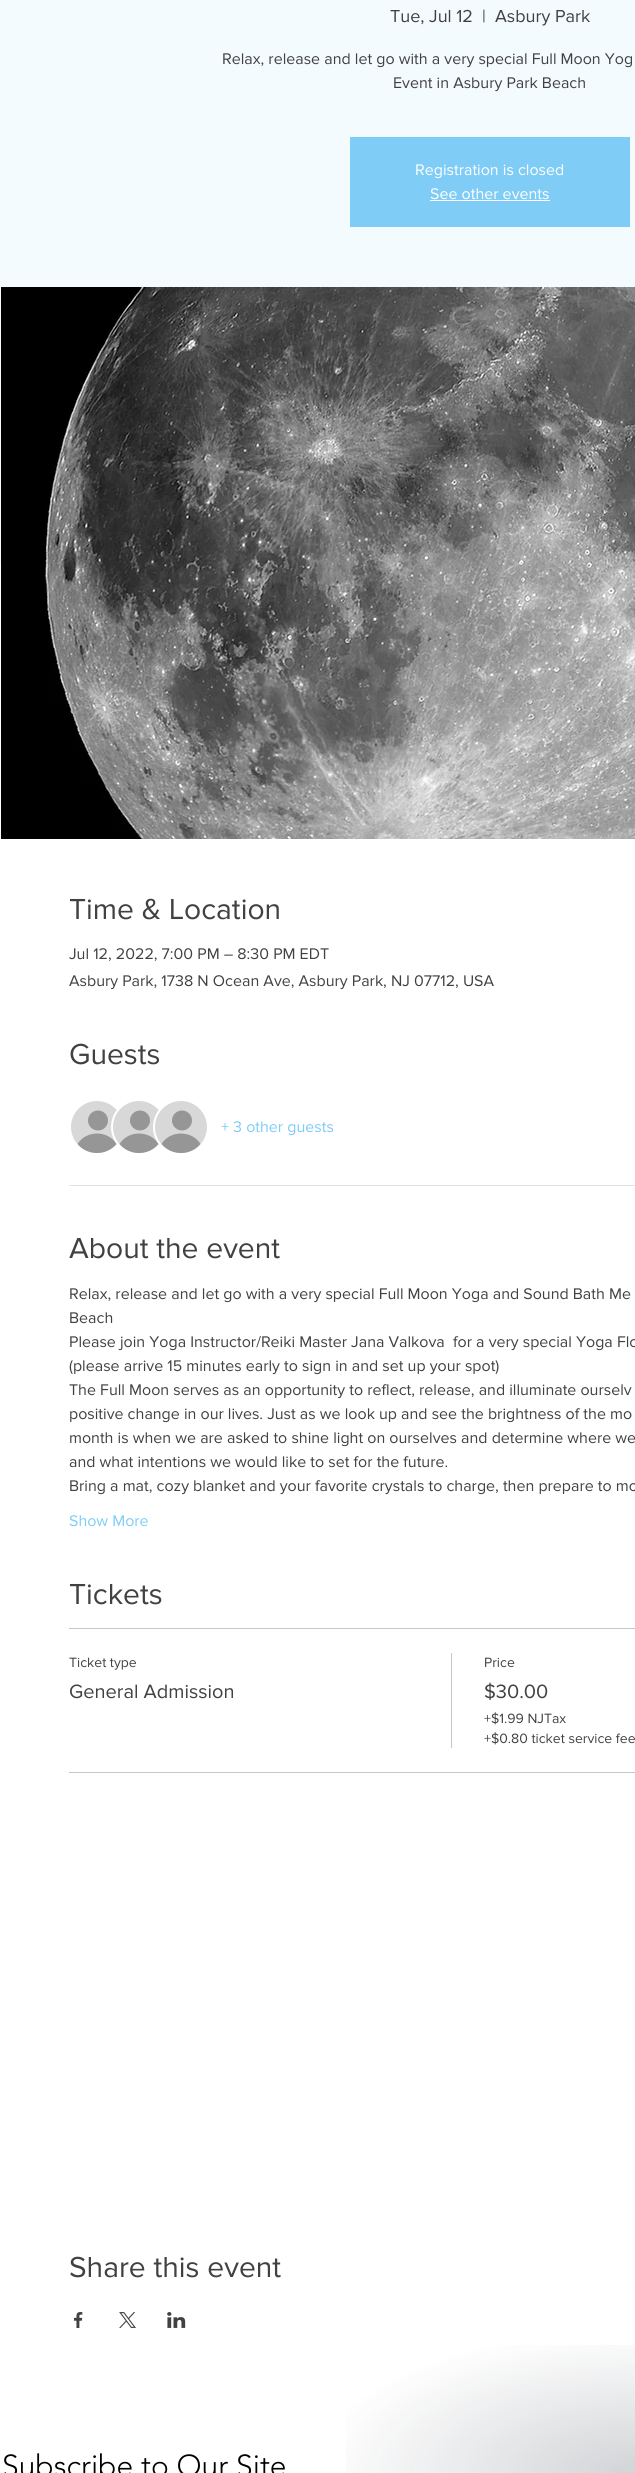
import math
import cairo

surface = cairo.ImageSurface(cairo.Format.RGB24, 635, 2473)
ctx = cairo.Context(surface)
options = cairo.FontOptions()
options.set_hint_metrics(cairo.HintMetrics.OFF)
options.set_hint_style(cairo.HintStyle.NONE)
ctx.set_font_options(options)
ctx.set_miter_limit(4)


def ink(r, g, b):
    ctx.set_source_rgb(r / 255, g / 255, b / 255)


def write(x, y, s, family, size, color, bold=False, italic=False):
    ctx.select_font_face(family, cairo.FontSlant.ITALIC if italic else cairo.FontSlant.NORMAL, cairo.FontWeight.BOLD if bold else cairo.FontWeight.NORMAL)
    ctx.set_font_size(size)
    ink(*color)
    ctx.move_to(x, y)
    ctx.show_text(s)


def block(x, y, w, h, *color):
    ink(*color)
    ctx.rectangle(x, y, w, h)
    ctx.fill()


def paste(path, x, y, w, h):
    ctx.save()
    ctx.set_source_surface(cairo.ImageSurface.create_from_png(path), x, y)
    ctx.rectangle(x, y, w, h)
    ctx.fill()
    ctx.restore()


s1 = dict(family="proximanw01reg", size=18, color=(65, 65, 65))
s2 = dict(family="proximanw01reg", size=16, color=(65, 65, 65))
s3 = dict(family="proximanw01reg", size=16, color=(255, 255, 255))
s4 = dict(family="proximanw01reg", size=30, color=(65, 65, 65))
s5 = dict(family="proximanw01reg", size=16, color=(127, 204, 247))
s6 = dict(family="proximanw01reg", size=14, color=(65, 65, 65))
s7 = dict(family="proximanw01reg", size=20, color=(65, 65, 65))
s8 = dict(family="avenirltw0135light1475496 Light", size=30, color=(0, 0, 0))

ink(255, 255, 255)
ctx.paint()
block(0, 0, 635, 563, 243, 251, 255)
write(390, 22, "Tue, Jul 12", **s1)
write(482, 22, "|", **s1)
write(495, 22, "Asbury Park", **s1)
write(222, 64, "Relax, release and let go with a very special Full Moon Yog", **s2)
write(393, 88, "Event in Asbury Park Beach", **s2)
block(350, 137, 280, 90, 127, 204, 247)
write(415, 175, "Registration is closed", **s3)
write(430, 199, "See other events", **s3)
block(430, 200, 120, 1, 255, 255, 255)
paste("pic1.png", 1, 287, 634, 552)
write(69, 919, "Time & Location", **s4)
write(69, 959, "Jul 12, 2022, 7:00 PM – 8:30 PM EDT", **s2)
write(69, 986, "Asbury Park, 1738 N Ocean Ave, Asbury Park, NJ 07712, USA", **s2)
write(69, 1064, "Guests", **s4)
ink(216, 216, 216)
ctx.new_path()
ctx.arc(97, 1127, 27, 0, 2 * math.pi)
ctx.fill_preserve()
ink(255, 255, 255)
ctx.stroke()
ink(150, 150, 150)
ctx.arc(98, 1120.5, 10, 0, 2 * math.pi)
ctx.fill()
ctx.new_path()
ctx.move_to(116.5, 1144)
ctx.curve_to(106.5, 1156, 87.5, 1156, 77.5, 1144)
ctx.curve_to(86, 1130, 108, 1130, 116.5, 1144)
ctx.close_path()
ctx.fill()
ink(216, 216, 216)
ctx.arc(139, 1127, 27, 0, 2 * math.pi)
ctx.fill_preserve()
ink(255, 255, 255)
ctx.stroke()
ink(150, 150, 150)
ctx.arc(140, 1120.5, 10, 0, 2 * math.pi)
ctx.fill()
ctx.new_path()
ctx.move_to(158.5, 1144)
ctx.curve_to(148.5, 1156, 129.5, 1156, 119.5, 1144)
ctx.curve_to(128, 1130, 150, 1130, 158.5, 1144)
ctx.close_path()
ctx.fill()
ink(216, 216, 216)
ctx.arc(181, 1127, 27, 0, 2 * math.pi)
ctx.fill_preserve()
ink(255, 255, 255)
ctx.stroke()
ink(150, 150, 150)
ctx.arc(182, 1120.5, 10, 0, 2 * math.pi)
ctx.fill()
ctx.new_path()
ctx.move_to(200.5, 1144)
ctx.curve_to(190.5, 1156, 171.5, 1156, 161.5, 1144)
ctx.curve_to(170, 1130, 192, 1130, 200.5, 1144)
ctx.close_path()
ctx.fill()
write(221, 1132, "+ 3 other guests", **s5)
block(69, 1185, 566, 1, 227, 227, 227)
write(69, 1258, "About the event", **s4)
write(69, 1299, "Relax, release and let go with a very special Full Moon Yoga and Sound Bath Me", **s2)
write(69, 1323, "Beach", **s2)
write(69, 1347, "Please join Yoga Instructor/Reiki Master Jana Valkova  for a very special Yoga Flo", **s2)
write(69, 1371, "(please arrive 15 minutes early to sign in and set up your spot)", **s2)
write(69, 1395, "The Full Moon serves as an opportunity to reflect, release, and illuminate ourselv", **s2)
write(69, 1419, "positive change in our lives. Just as we look up and see the brightness of the mo", **s2)
write(69, 1443, "month is when we are asked to shine light on ourselves and determine where we", **s2)
write(69, 1467, "and what intentions we would like to set for the future.", **s2)
write(69, 1491, "Bring a mat, cozy blanket and your favorite crystals to charge, then prepare to mo", **s2)
write(69, 1526, "Show More", **s5)
write(69, 1604, "Tickets", **s4)
block(69, 1628, 566, 1, 198, 198, 198)
block(69, 1772, 566, 1, 198, 198, 198)
write(69, 1667, "Ticket type", **s6)
write(69, 1698, "General Admission", **s7)
block(451, 1653, 1, 95, 198, 198, 198)
write(484, 1667, "Price", **s6)
write(484, 1698, "$30.00", **s7)
write(484, 1723, "+$1.99 NJTax", **s6)
write(484, 1743, "+$0.80 ticket service fee", **s6)
write(69, 2277, "Share this event", **s4)
paste("pic2.png", 74, 2312, 9, 16)
paste("pic3.png", 119, 2312, 17, 16)
paste("pic4.png", 167, 2312, 19, 16)
write(2, 2476, "Subscribe to Our Site", **s8)
gradient = cairo.RadialGradient(0, 0, 0, 0, 0, 1)
gradient.set_matrix(cairo.Matrix(1 / 450, 0, 0, 1 / 200, -1 * 635 / 450, -1 * 2473 / 200))
gradient.add_color_stop_rgba(0, 0.114, 0.153, 0.212, 0.2)
gradient.add_color_stop_rgba(0.72, 0.114, 0.153, 0.212, 0)
ctx.set_source(gradient)
ctx.rectangle(346, 2345, 289, 128)
ctx.fill()
surface.write_to_png("screenshot.png")
